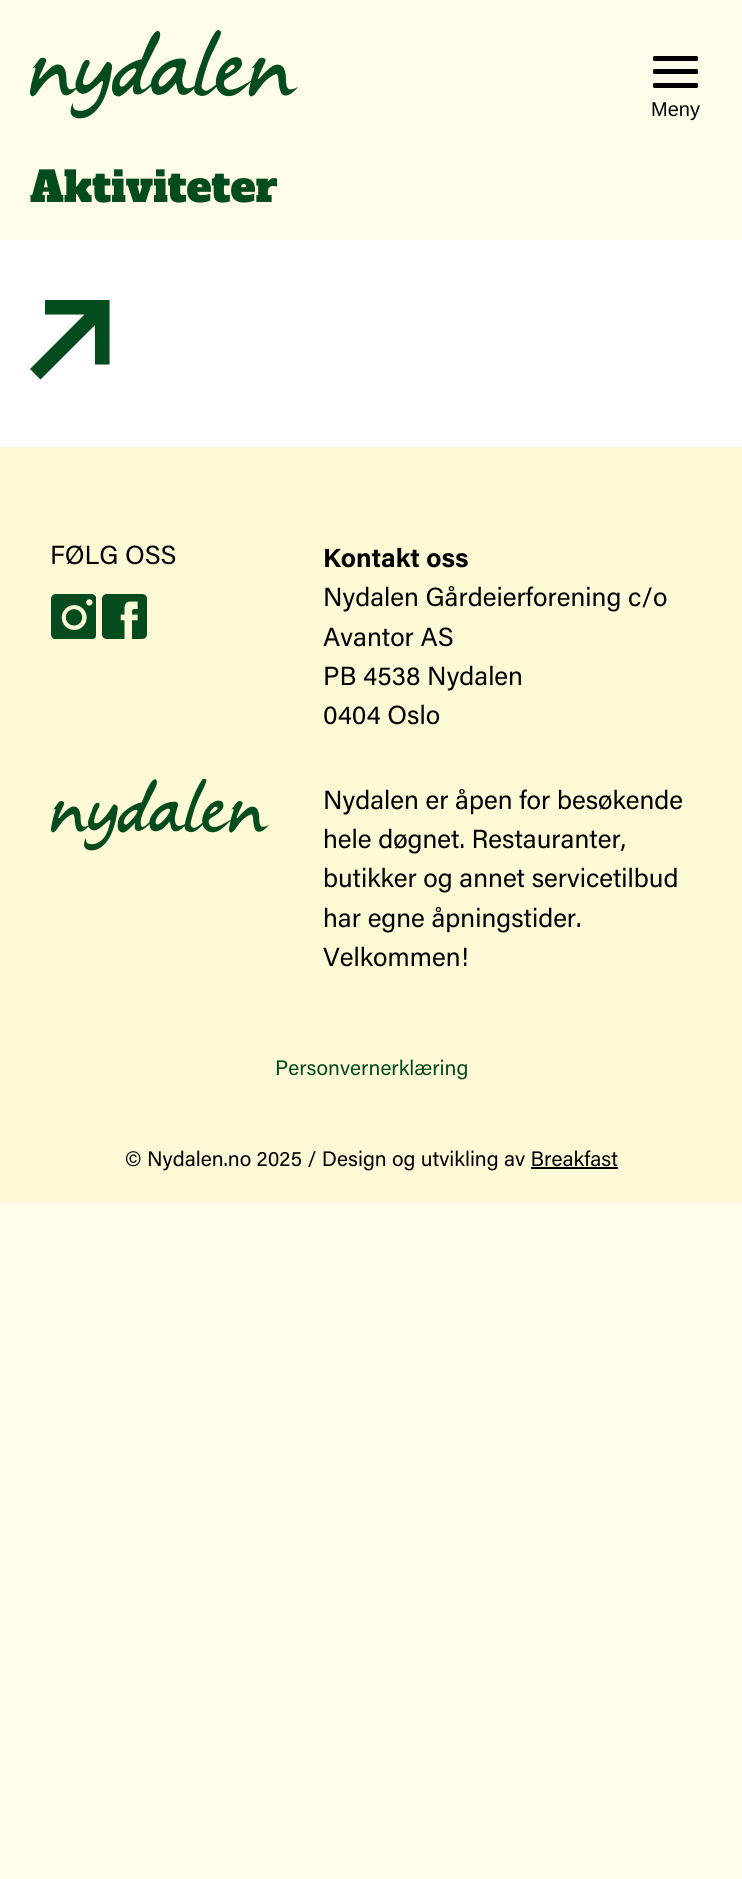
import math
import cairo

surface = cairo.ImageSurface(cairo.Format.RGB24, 742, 1879)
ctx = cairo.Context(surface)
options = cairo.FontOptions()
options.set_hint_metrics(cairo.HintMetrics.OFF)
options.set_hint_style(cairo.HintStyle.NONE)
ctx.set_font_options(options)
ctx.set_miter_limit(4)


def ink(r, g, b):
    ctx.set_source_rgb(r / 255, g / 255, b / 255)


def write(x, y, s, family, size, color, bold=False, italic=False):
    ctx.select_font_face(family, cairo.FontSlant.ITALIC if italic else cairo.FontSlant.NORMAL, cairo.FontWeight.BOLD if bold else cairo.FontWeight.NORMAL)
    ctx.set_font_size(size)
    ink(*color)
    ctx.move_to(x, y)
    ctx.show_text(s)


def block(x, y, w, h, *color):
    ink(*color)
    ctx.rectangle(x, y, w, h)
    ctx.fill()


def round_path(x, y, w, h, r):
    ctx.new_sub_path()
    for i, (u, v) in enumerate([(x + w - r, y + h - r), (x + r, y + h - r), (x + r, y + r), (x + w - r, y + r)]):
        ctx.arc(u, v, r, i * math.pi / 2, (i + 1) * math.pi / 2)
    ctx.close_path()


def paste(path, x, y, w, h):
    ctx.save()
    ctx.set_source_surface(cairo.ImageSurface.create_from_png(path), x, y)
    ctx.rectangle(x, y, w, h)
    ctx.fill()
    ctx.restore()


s1 = dict(family="Liberation Sans", size=20, color=(0, 0, 0))
s2 = dict(family="Alfa Slab One", size=42, color=(4, 75, 29))
s3 = dict(family="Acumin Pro", size=26.25, color=(0, 0, 0))
s4 = dict(family="Acumin Pro", size=26.25, color=(0, 0, 0), bold=True)
s5 = dict(family="Acumin Pro", size=21, color=(4, 75, 29))
s6 = dict(family="Acumin Pro", size=21, color=(0, 0, 0))

ink(255, 252, 234)
ctx.paint()
paste("pic1.png", 30, 30, 269, 89)
ink(0, 0, 0)
round_path(653, 56, 45, 5, 1.5)
ctx.fill()
round_path(653, 69, 45, 5, 1.5)
ctx.fill()
round_path(653, 83, 45, 5, 1.5)
ctx.fill()
write(651, 116, "Meny", **s1)
write(30, 202, "Aktiviteter", **s2)
block(0, 240, 742, 207, 255, 255, 255)
ink(4, 75, 29)
ctx.new_path()
ctx.move_to(35, 369)
ctx.line_to(93, 311)
ctx.line_to(48, 311)
ctx.line_to(48, 304)
ctx.line_to(106, 304)
ctx.line_to(106, 361)
ctx.line_to(98, 361)
ctx.line_to(98, 316)
ctx.line_to(40, 374)
ctx.close_path()
ctx.fill()
ctx.save()
ctx.rectangle(30, 300, 80, 80)
ctx.clip()
ctx.new_path()
ctx.move_to(35, 369)
ctx.line_to(93, 311)
ctx.line_to(48.5, 311)
ctx.line_to(48.5, 303.5)
ctx.line_to(106, 303.5)
ctx.line_to(106, 361)
ctx.line_to(98.5, 361)
ctx.line_to(98.5, 316.5)
ctx.line_to(40.5, 374.5)
ctx.close_path()
ctx.set_line_width(7.1)
ctx.stroke()
ctx.restore()
block(0, 447, 742, 603, 255, 250, 214)
write(50, 564, "FØLG OSS", **s3)
paste("pic2.png", 51, 594, 45, 45)
paste("pic3.png", 102, 594, 45, 45)
write(323, 567, "Kontakt oss", **s4)
write(323, 606, "Nydalen Gårdeierforening c/o", **s3)
write(323, 646, "Avantor AS", **s3)
write(323, 685, "PB 4538 Nydalen", **s3)
write(323, 724, "0404 Oslo", **s3)
paste("pic4.png", 51, 779, 218, 72)
write(323, 809, "Nydalen er åpen for besøkende", **s3)
write(323, 848, "hele døgnet. Restauranter,", **s3)
write(323, 887, "butikker og annet servicetilbud", **s3)
write(323, 927, "har egne åpningstider.", **s3)
write(323, 966, "Velkommen!", **s3)
block(0, 1050, 742, 153, 255, 249, 215)
write(275, 1075, "Personvernerklæring", **s5)
write(125, 1166, "© Nydalen.no 2025 / Design og utvikling av Breakfast", **s6)
block(531, 1167, 87, 2, 0, 0, 0)
surface.write_to_png("screenshot.png")
